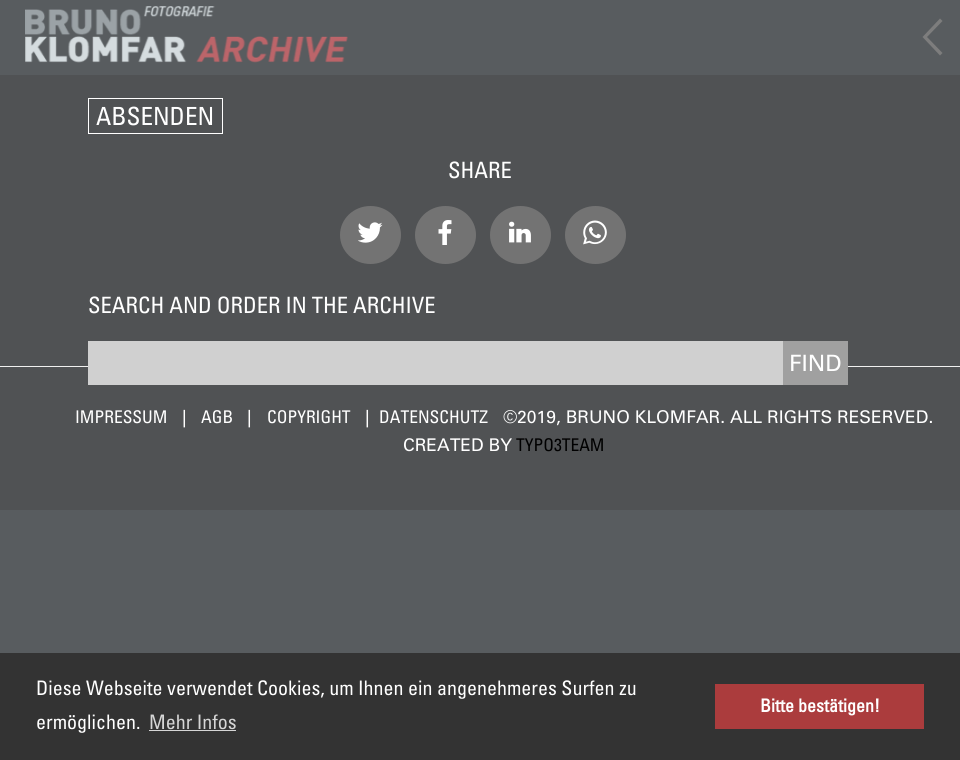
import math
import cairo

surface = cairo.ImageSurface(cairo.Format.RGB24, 960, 760)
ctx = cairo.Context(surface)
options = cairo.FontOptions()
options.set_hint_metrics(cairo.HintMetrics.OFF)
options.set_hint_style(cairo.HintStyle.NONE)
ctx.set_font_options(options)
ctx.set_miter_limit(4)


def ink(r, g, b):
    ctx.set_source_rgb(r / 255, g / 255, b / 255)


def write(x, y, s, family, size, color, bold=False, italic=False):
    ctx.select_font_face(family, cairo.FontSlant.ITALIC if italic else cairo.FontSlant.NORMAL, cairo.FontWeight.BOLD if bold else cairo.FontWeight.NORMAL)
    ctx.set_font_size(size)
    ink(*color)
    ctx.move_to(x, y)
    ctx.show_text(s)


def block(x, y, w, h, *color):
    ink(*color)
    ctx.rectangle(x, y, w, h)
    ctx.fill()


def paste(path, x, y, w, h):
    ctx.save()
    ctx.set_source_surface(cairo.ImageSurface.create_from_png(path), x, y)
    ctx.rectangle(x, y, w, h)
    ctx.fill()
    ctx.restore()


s1 = dict(family="Univers", size=25, color=(255, 255, 255))
s2 = dict(family="Univers", size=22.5, color=(255, 255, 255))
s3 = dict(family="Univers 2", size=22.5, color=(255, 255, 255))
s4 = dict(family="Univers", size=17.5, color=(255, 255, 255))
s5 = dict(family="Univers 2", size=17.5, color=(255, 255, 255))
s6 = dict(family="Univers", size=17.5, color=(0, 0, 0))
s7 = dict(family="Univers", size=20, color=(255, 255, 255))
s8 = dict(family="Univers", size=20, color=(214, 214, 214))
s9 = dict(family="Univers", size=18, color=(255, 255, 255), bold=True)

ink(88, 92, 95)
ctx.paint()
paste("pic1.png", 25, 6, 323, 57)
ink(125, 125, 125)
ctx.new_path()
ctx.move_to(940, 55.5)
ctx.line_to(922.5, 37)
ctx.line_to(940, 18.5)
ctx.line_to(942.5, 21)
ctx.line_to(927, 37)
ctx.line_to(942.5, 53)
ctx.close_path()
ctx.fill()
block(0, 75, 960, 291, 80, 82, 84)
ctx.rectangle(88.5, 98.5, 134, 35)
ink(255, 255, 255)
ctx.set_line_width(1)
ctx.stroke()
write(96, 125, "ABSENDEN", **s1)
write(448, 178, "SHARE", **s2)
ink(115, 115, 115)
ctx.new_path()
ctx.move_to(370.5, 206)
ctx.curve_to(387.5, 206, 401, 219, 401, 235)
ctx.curve_to(401, 251, 387.5, 264, 370.5, 264)
ctx.curve_to(353.5, 264, 340, 251, 340, 235)
ctx.curve_to(340, 219, 353.5, 206, 370.5, 206)
ctx.close_path()
ctx.fill()
paste("pic2.png", 358, 222, 25, 21)
ctx.new_path()
ctx.move_to(445.5, 206)
ctx.curve_to(462.5, 206, 476, 219, 476, 235)
ctx.curve_to(476, 251, 462.5, 264, 445.5, 264)
ctx.curve_to(428.5, 264, 415, 251, 415, 235)
ctx.curve_to(415, 219, 428.5, 206, 445.5, 206)
ctx.close_path()
ctx.fill()
paste("pic3.png", 438, 220, 14, 25)
ctx.new_path()
ctx.move_to(520.5, 206)
ctx.curve_to(537.5, 206, 551, 219, 551, 235)
ctx.curve_to(551, 251, 537.5, 264, 520.5, 264)
ctx.curve_to(503.5, 264, 490, 251, 490, 235)
ctx.curve_to(490, 219, 503.5, 206, 520.5, 206)
ctx.close_path()
ctx.fill()
paste("pic4.png", 509, 221, 22, 22)
ctx.new_path()
ctx.move_to(595.5, 206)
ctx.curve_to(612.5, 206, 626, 219, 626, 235)
ctx.curve_to(626, 251, 612.5, 264, 595.5, 264)
ctx.curve_to(578.5, 264, 565, 251, 565, 235)
ctx.curve_to(565, 219, 578.5, 206, 595.5, 206)
ctx.close_path()
ctx.fill()
paste("pic5.png", 583, 220, 24, 25)
write(88, 313, "SEARCH AND ORDER IN THE ARCHIVE", **s2)
block(0, 367, 960, 143, 80, 82, 84)
block(0, 366, 960, 1, 240, 240, 240)
block(88, 341, 695, 44, 208, 208, 208)
block(783, 341, 65, 44, 160, 160, 160)
write(789, 371, "FIND", **s3)
write(75, 423, "IMPRESSUM", **s4)
write(182, 423, "|", **s5)
write(201, 423, "AGB", **s4)
write(247, 423, "|", **s5)
write(267, 423, "COPYRIGHT", **s4)
write(365, 423, "|", **s5)
write(379, 423, "DATENSCHUTZ", **s4)
write(503, 423, "©2019, BRUNO KLOMFAR. ALL RIGHTS RESERVED.", **s5)
write(403, 451, "CREATED BY", **s5)
write(516, 451, "TYPO3TEAM", **s6)
block(0, 653, 960, 107, 51, 51, 51)
write(36, 695, "Diese Webseite verwendet Cookies, um Ihnen ein angenehmeres Surfen zu", **s7)
write(36, 729, "ermöglichen.", **s7)
write(149, 729, "Mehr Infos", **s8)
block(149, 730, 87, 1, 214, 214, 214)
block(715, 684, 209, 45, 171, 60, 61)
write(760, 712, "Bitte bestätigen!", **s9)
surface.write_to_png("screenshot.png")
